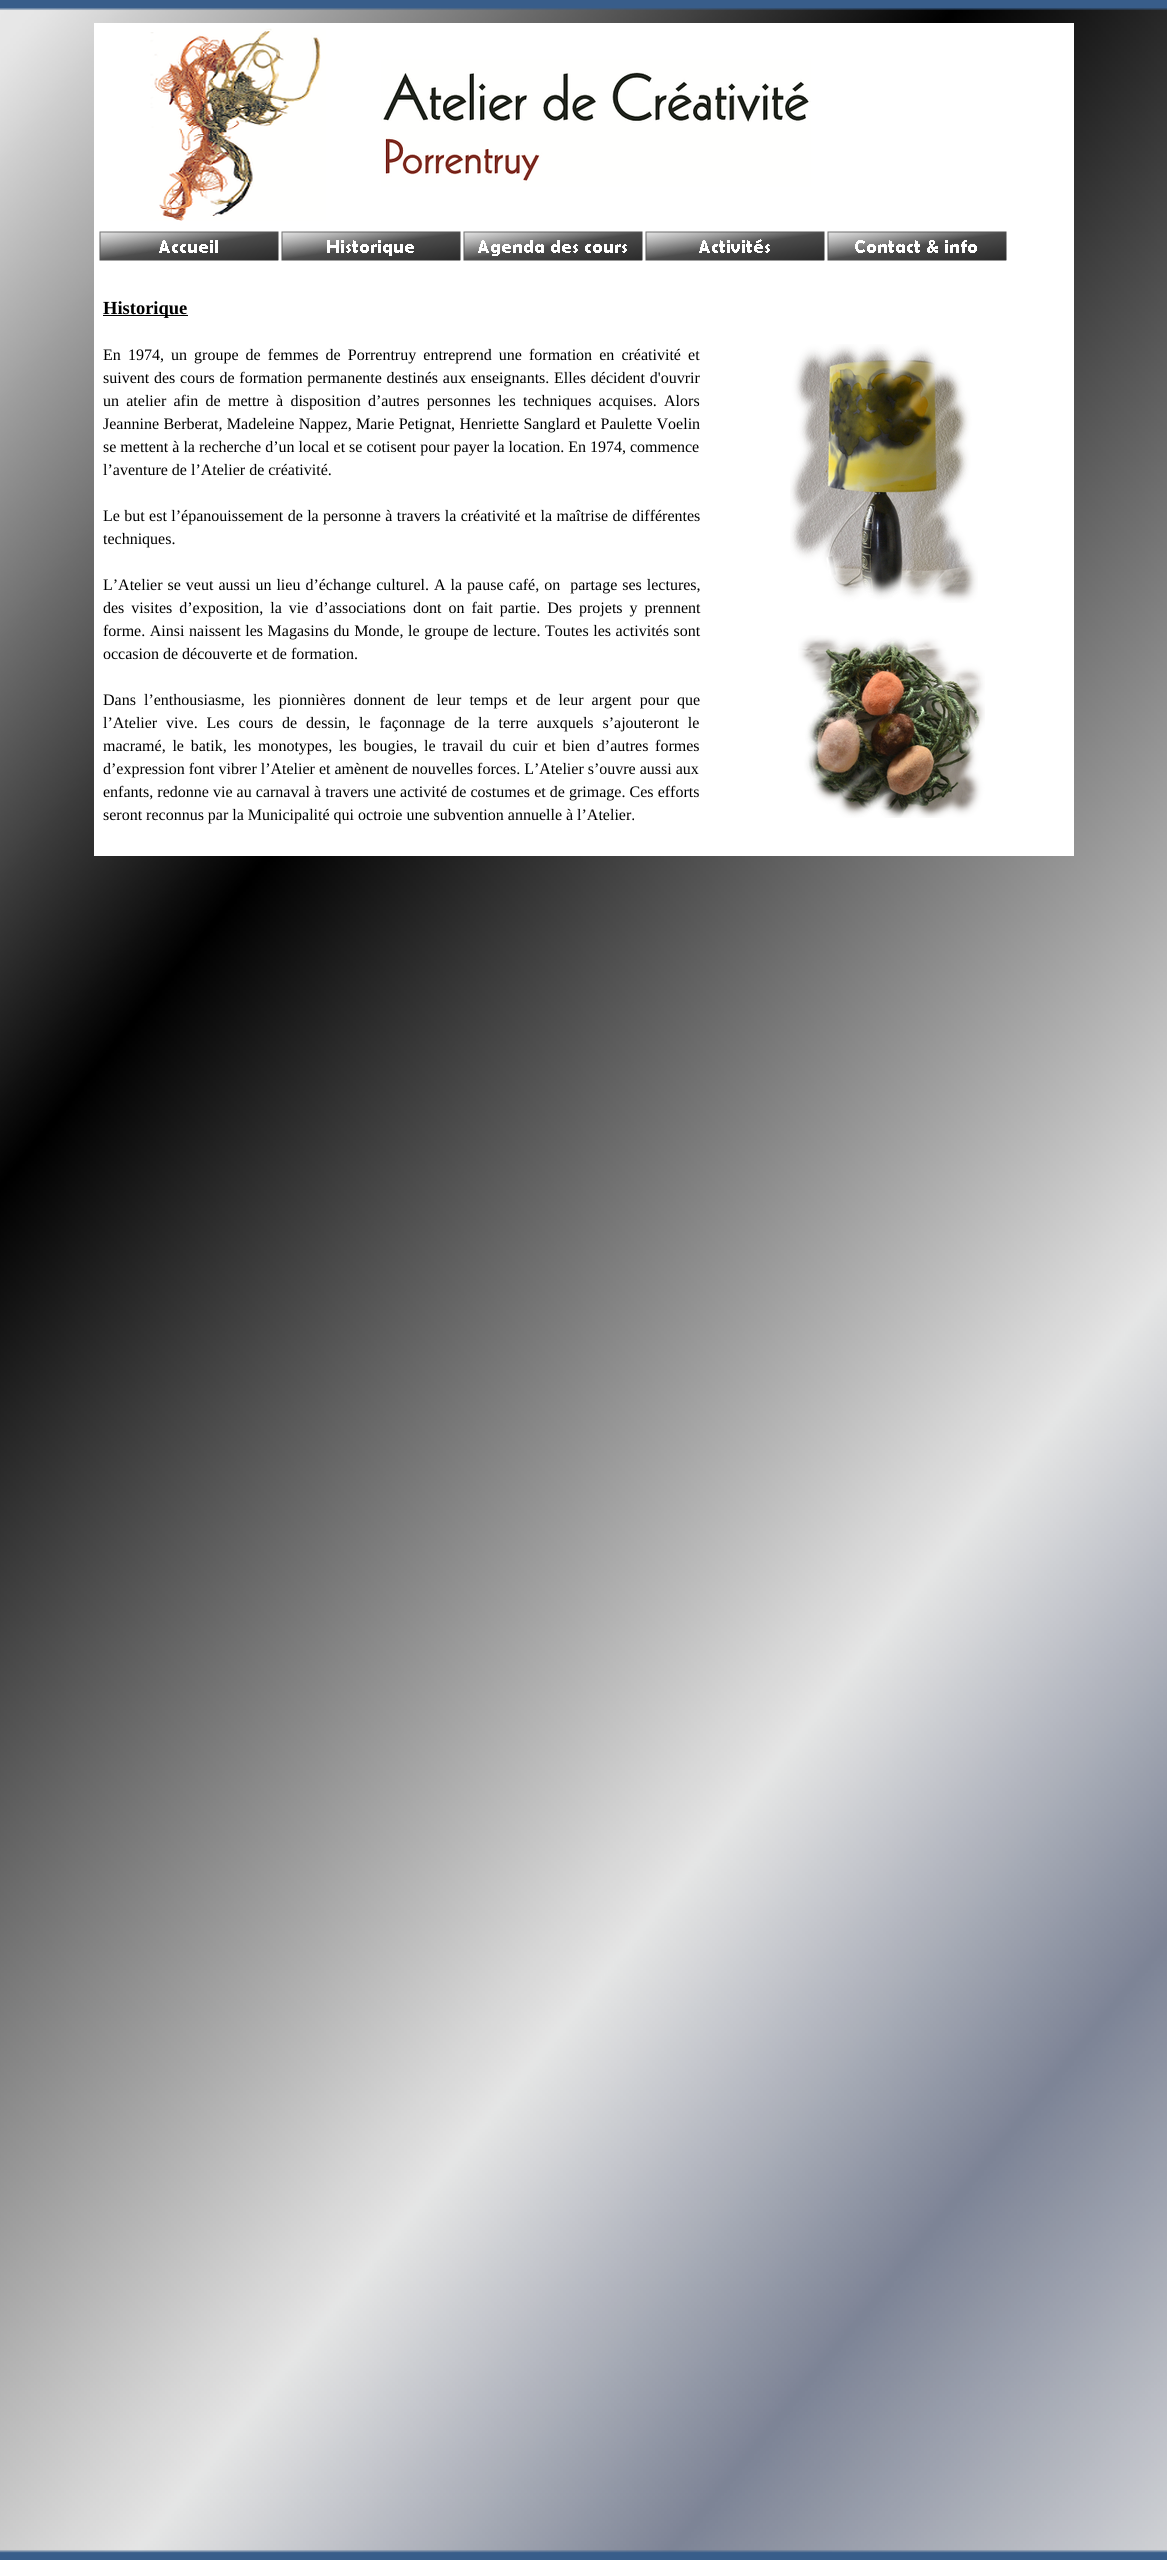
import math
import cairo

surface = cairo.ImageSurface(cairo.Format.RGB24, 1167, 2560)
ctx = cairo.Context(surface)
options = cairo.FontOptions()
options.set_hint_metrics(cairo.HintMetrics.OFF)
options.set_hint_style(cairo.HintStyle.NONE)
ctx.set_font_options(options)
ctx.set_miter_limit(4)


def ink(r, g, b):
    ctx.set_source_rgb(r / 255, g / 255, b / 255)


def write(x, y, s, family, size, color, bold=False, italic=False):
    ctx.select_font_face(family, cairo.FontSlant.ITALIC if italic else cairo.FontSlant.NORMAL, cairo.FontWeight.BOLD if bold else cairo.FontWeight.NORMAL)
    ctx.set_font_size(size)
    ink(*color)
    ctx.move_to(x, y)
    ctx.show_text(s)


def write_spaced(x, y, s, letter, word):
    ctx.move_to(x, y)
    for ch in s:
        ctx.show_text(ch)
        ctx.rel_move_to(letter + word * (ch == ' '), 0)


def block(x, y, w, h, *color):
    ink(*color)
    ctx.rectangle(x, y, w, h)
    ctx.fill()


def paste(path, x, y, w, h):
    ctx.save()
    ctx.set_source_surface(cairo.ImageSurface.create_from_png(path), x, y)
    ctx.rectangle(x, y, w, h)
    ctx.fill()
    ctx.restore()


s1 = dict(family="Liberation Serif", size=18.5, color=(0, 0, 0), bold=True)
s2 = dict(family="Liberation Serif", size=16, color=(0, 0, 0))

ink(255, 255, 255)
ctx.paint()
paste("pic1.png", 0, 0, 1167, 2560)
block(94, 23, 980, 205, 255, 255, 255)
paste("pic2.png", 150, 28, 661, 193)
block(94, 228, 980, 628, 255, 255, 255)
paste("pic3.png", 99, 231, 180, 30)
paste("pic4.png", 281, 231, 180, 30)
paste("pic5.png", 463, 231, 180, 30)
paste("pic6.png", 645, 231, 180, 30)
paste("pic7.png", 827, 231, 180, 30)
block(103, 315, 85, 1, 0, 0, 0)
write(103, 314, "Historique", **s1)
ctx.select_font_face("Liberation Serif")
ctx.set_font_size(16)
write_spaced(103, 360, "En 1974, un groupe de femmes de Porrentruy entreprend une formation en créativité et", 0, 3.1)
write_spaced(103, 383, "suivent des cours de formation permanente destinés aux enseignants. Elles décident d'ouvrir", 0, 0.75)
write_spaced(103, 406, "un atelier afin de mettre à disposition d’autres personnes les techniques acquises. Alors", 0, 3.25)
write_spaced(103, 429, "Jeannine Berberat, Madeleine Nappez, Marie Petignat, Henriette Sanglard et Paulette Voelin", 0, 0.4)
write(103, 452, "se mettent à la recherche d’un local et se cotisent pour payer la location. En 1974, commence", **s2)
write(103, 475, "l’aventure de l’Atelier de créativité.", **s2)
write_spaced(103, 521, "Le but est l’épanouissement de la personne à travers la créativité et la maîtrise de différentes", 0, 0.4)
write(103, 544, "techniques.", **s2)
write_spaced(103, 590, "L’Atelier se veut aussi un lieu d’échange culturel. A la pause café, on  partage ses lectures,", 0, 1)
write_spaced(103, 613, "des visites d’exposition, la vie d’associations dont on fait partie. Des projets y prennent", 0, 3)
write_spaced(103, 636, "forme. Ainsi naissent les Magasins du Monde, le groupe de lecture. Toutes les activités sont", 0, 0.6)
write(103, 659, "occasion de découverte et de formation.", **s2)
write_spaced(103, 705, "Dans l’enthousiasme, les pionnières donnent de leur temps et de leur argent pour que", 0, 4.1)
write_spaced(103, 728, "l’Atelier vive. Les cours de dessin, le façonnage de la terre auxquels s’ajouteront le", 0, 4.9)
write_spaced(103, 751, "macramé, le batik, les monotypes, les bougies, le travail du cuir et bien d’autres formes", 0, 2.75)
write(103, 774, "d’expression font vibrer l’Atelier et amènent de nouvelles forces. L’Atelier s’ouvre aussi aux", **s2)
write_spaced(103, 797, "enfants, redonne vie au carnaval à travers une activité de costumes et de grimage. Ces efforts", 0, 0.1)
write(103, 820, "seront reconnus par la Municipalité qui octroie une subvention annuelle à l’Atelier.", **s2)
paste("pic8.png", 790, 344, 188, 259)
paste("pic9.png", 798, 635, 187, 183)
surface.write_to_png("screenshot.png")
